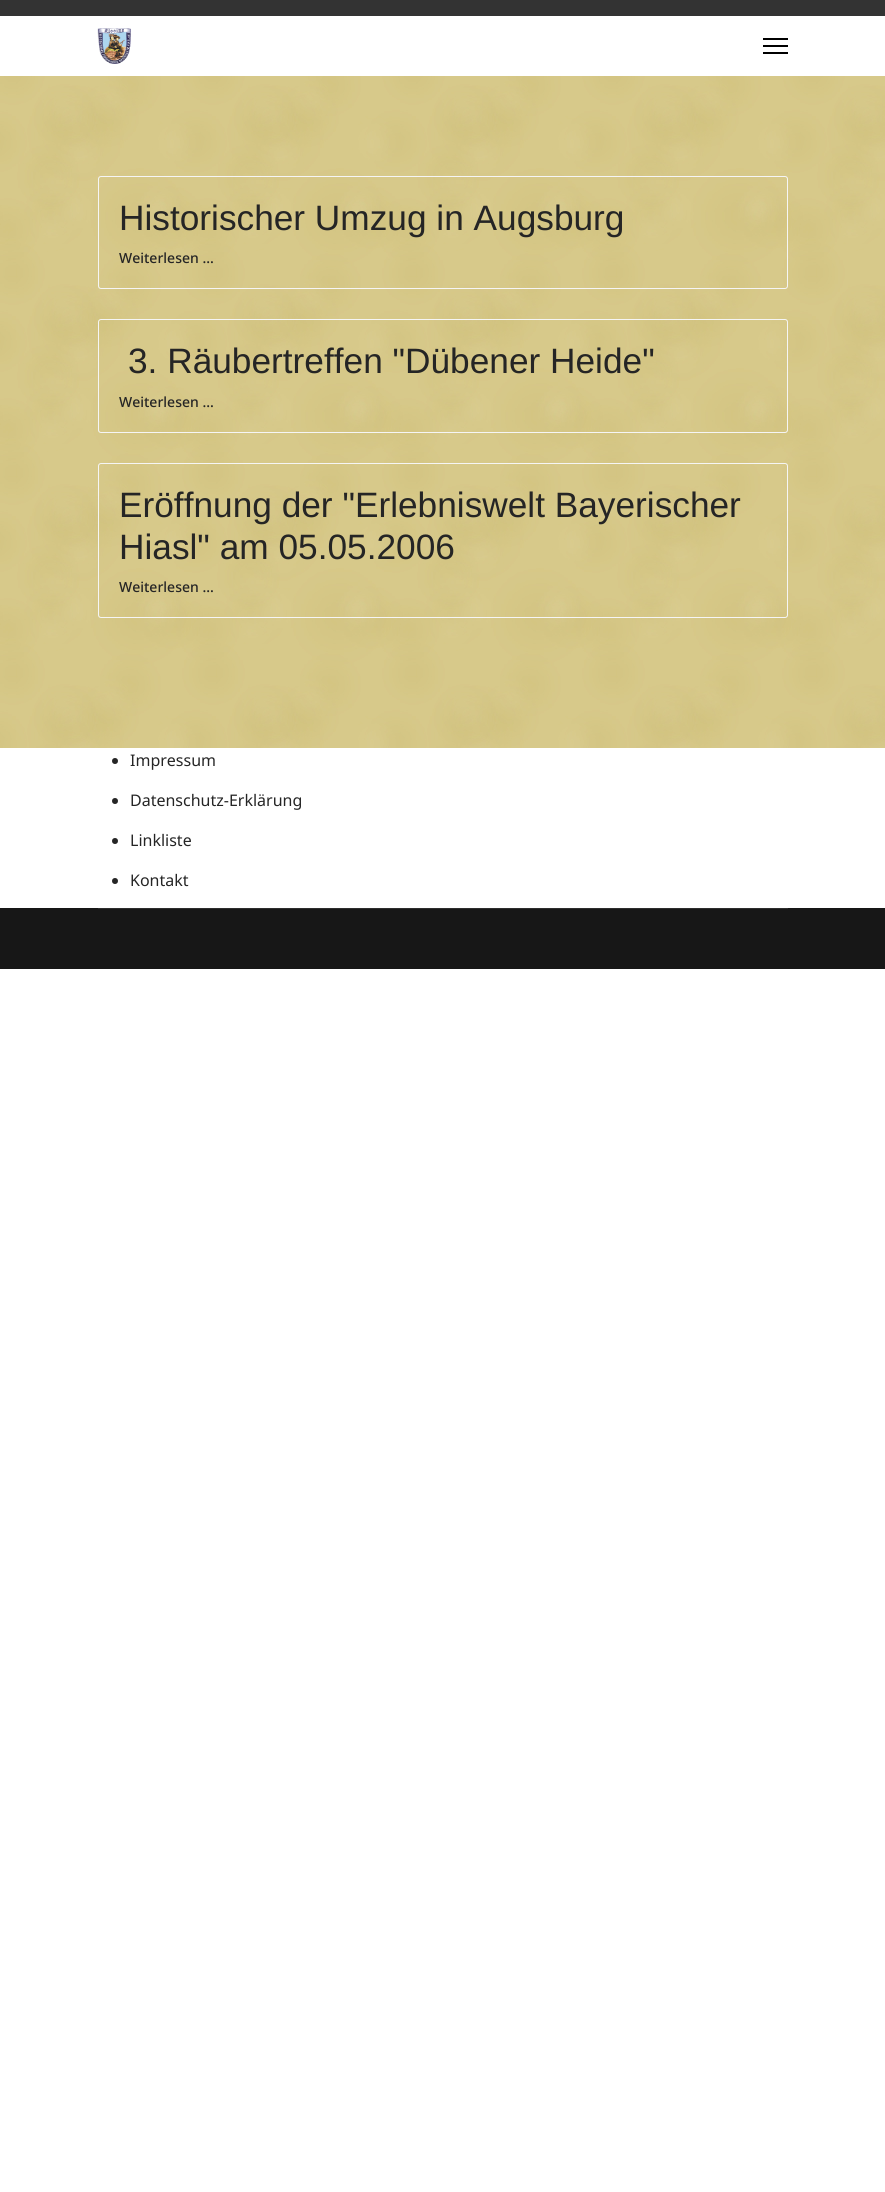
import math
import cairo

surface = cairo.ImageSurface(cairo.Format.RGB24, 885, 2192)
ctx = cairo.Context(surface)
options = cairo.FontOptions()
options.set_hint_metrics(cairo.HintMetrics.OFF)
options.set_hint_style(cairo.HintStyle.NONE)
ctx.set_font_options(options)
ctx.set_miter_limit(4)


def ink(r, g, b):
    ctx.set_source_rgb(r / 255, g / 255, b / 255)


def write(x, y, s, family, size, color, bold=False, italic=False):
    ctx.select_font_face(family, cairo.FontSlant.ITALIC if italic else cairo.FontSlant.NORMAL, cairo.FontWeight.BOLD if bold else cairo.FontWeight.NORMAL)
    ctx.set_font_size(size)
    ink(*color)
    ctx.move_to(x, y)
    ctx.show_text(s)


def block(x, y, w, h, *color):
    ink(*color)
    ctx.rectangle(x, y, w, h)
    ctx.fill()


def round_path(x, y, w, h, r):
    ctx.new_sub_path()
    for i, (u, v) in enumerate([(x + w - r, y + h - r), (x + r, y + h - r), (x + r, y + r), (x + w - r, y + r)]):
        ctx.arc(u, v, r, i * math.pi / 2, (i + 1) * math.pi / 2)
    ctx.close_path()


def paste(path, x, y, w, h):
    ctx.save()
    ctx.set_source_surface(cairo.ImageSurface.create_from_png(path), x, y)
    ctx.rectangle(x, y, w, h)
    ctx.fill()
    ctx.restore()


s1 = dict(family="Liberation Sans", size=35.25, color=(37, 37, 37))
s2 = dict(family="Noto Sans Medium", size=14, color=(37, 37, 37))
s3 = dict(family="Noto Sans", size=16, color=(37, 37, 37))

ink(255, 255, 255)
ctx.paint()
block(0, 0, 885, 16, 51, 51, 51)
paste("pic1.png", 97, 28, 34, 36)
block(763, 38, 25, 2, 0, 0, 0)
block(763, 45, 25, 2, 0, 0, 0)
block(763, 52, 25, 2, 0, 0, 0)
paste("pic2.png", 0, 76, 885, 672)
round_path(98.5, 176.5, 689, 112, 2.5)
ink(245, 245, 245)
ctx.set_line_width(1)
ctx.stroke()
write(119, 230, "Historischer Umzug in Augsburg", **s1)
write(119, 263, "Weiterlesen …", **s2)
round_path(98.5, 319.5, 689, 113, 2.5)
ink(245, 245, 245)
ctx.stroke()
write(128, 373, "3. Räubertreffen \"Dübener Heide\"", **s1)
write(119, 407, "Weiterlesen …", **s2)
round_path(98.5, 463.5, 689, 154, 2.5)
ink(245, 245, 245)
ctx.stroke()
write(119, 517, "Eröffnung der \"Erlebniswelt Bayerischer", **s1)
write(119, 559, "Hiasl\" am 05.05.2006", **s1)
write(119, 592, "Weiterlesen …", **s2)
ctx.new_path()
ctx.arc(115, 761, 3, 0, 2 * math.pi)
ctx.fill()
write(130, 766, "Impressum", **s3)
ctx.new_path()
ctx.arc(115, 801, 3, 0, 2 * math.pi)
ctx.fill()
write(130, 806, "Datenschutz-Erklärung", **s3)
ctx.new_path()
ctx.arc(115, 841, 3, 0, 2 * math.pi)
ctx.fill()
write(130, 846, "Linkliste", **s3)
ctx.new_path()
ctx.arc(115, 881, 3, 0, 2 * math.pi)
ctx.fill()
write(130, 886, "Kontakt", **s3)
block(0, 908, 885, 61, 23, 23, 23)
block(98, 908, 690, 1, 46, 46, 46)
surface.write_to_png("screenshot.png")
